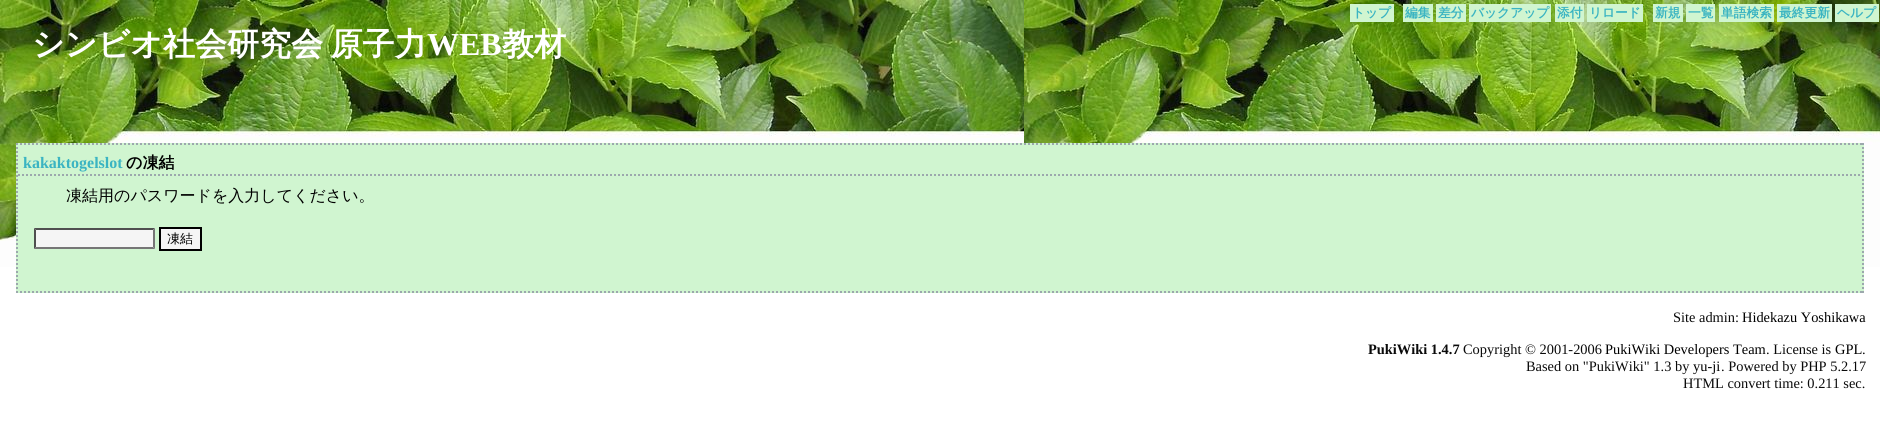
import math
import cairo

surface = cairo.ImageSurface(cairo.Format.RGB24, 1880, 439)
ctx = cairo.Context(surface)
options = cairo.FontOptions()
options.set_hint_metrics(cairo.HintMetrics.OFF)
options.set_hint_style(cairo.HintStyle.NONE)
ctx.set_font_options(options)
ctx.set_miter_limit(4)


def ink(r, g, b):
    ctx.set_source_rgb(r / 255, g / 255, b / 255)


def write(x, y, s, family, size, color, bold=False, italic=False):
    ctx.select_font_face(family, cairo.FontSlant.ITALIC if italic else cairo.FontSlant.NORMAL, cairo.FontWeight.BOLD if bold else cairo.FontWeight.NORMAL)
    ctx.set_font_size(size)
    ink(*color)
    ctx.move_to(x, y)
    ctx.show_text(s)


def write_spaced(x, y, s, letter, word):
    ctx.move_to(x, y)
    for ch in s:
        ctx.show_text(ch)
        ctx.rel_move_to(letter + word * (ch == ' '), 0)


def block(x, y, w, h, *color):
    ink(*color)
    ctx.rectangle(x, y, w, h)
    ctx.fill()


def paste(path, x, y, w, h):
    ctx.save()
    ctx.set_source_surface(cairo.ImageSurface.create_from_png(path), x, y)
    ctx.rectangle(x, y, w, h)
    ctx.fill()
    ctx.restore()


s1 = dict(family="WenQuanYi Zen Hei", size=12.75, color=(58, 180, 194), bold=True)
s2 = dict(family="Liberation Serif", size=32, color=(255, 255, 255), bold=True)
s3 = dict(family="WenQuanYi Zen Hei", size=32, color=(255, 255, 255), bold=True)
s4 = dict(family="Liberation Serif", size=16, color=(58, 180, 194), bold=True)
s5 = dict(family="WenQuanYi Zen Hei", size=16, color=(0, 0, 0), bold=True)
s6 = dict(family="WenQuanYi Zen Hei Medium", size=16, color=(0, 0, 0))
s7 = dict(family="WenQuanYi Zen Hei Medium", size=13, color=(0, 0, 0))
s8 = dict(family="Liberation Serif", size=14.4, color=(10, 10, 10))
s9 = dict(family="Liberation Serif", size=14.4, color=(0, 0, 0))
s10 = dict(family="Liberation Serif", size=14.4, color=(10, 10, 10), bold=True)

ink(255, 255, 255)
ctx.paint()
paste("pic1.png", 0, 0, 1880, 267)
block(1350, 4, 44, 18, 208, 245, 208)
write(1352, 17, "トップ", **s1)
block(1403, 4, 30, 18, 208, 245, 208)
write(1405, 17, "編集", **s1)
block(1436, 4, 30, 18, 208, 245, 208)
write(1438, 17, "差分", **s1)
block(1469, 4, 82, 18, 208, 245, 208)
write(1471, 17, "バックアップ", **s1)
block(1555, 4, 29, 18, 208, 245, 208)
write(1557, 17, "添付", **s1)
block(1587, 4, 56, 18, 208, 245, 208)
write(1589, 17, "リロード", **s1)
block(1653, 4, 30, 18, 208, 245, 208)
write(1655, 17, "新規", **s1)
block(1686, 4, 29, 18, 208, 245, 208)
write(1688, 17, "一覧", **s1)
block(1719, 4, 55, 18, 208, 245, 208)
write(1721, 17, "単語検索", **s1)
block(1777, 4, 55, 18, 208, 245, 208)
write(1779, 17, "最終更新", **s1)
block(1835, 4, 44, 18, 208, 245, 208)
write(1837, 17, "ヘルプ", **s1)
ctx.set_font_size(32)
ink(255, 255, 255)
write_spaced(32, 55, "シンビオ社会研究会 原子力", 0, -2)
write(427, 55, "WEB", **s2)
write(502, 55, "教材", **s3)
block(16, 143, 1848, 150, 208, 245, 208)
ctx.new_path()
ctx.move_to(16, 144)
ctx.line_to(1864, 144)
ink(156, 168, 173)
ctx.set_dash([2, 2])
ctx.stroke()
ctx.new_path()
ctx.move_to(1863, 143)
ctx.line_to(1863, 293)
ctx.stroke()
ctx.new_path()
ctx.move_to(16, 292)
ctx.line_to(1864, 292)
ctx.stroke()
ctx.new_path()
ctx.move_to(17, 143)
ctx.line_to(17, 293)
ctx.stroke()
ctx.new_path()
ctx.move_to(18, 175)
ctx.line_to(1862, 175)
ctx.stroke()
write(23, 168, "kakaktogelslot", **s4)
write(126, 168, "の凍結", **s5)
write(66, 201, "凍結用のパスワードを入力してください。", **s6)
block(34, 228, 121, 21, 245, 245, 245)
ink(79, 79, 79)
ctx.new_path()
ctx.move_to(34, 228)
ctx.line_to(155, 228)
ctx.line_to(153, 230)
ctx.line_to(36, 230)
ctx.close_path()
ctx.fill()
ink(118, 118, 118)
ctx.new_path()
ctx.move_to(155, 228)
ctx.line_to(155, 249)
ctx.line_to(153, 247)
ctx.line_to(153, 230)
ctx.close_path()
ctx.fill()
ctx.new_path()
ctx.move_to(155, 249)
ctx.line_to(34, 249)
ctx.line_to(36, 247)
ctx.line_to(153, 247)
ctx.close_path()
ctx.fill()
ink(79, 79, 79)
ctx.new_path()
ctx.move_to(34, 249)
ctx.line_to(34, 228)
ctx.line_to(36, 230)
ctx.line_to(36, 247)
ctx.close_path()
ctx.fill()
ink(245, 245, 245)
ctx.rectangle(160, 228, 41, 22)
ctx.fill_preserve()
ink(0, 0, 0)
ctx.set_dash([])
ctx.stroke()
write(167, 243, "凍結", **s7)
write(1673, 322, "Site admin:", **s8)
write(1742, 322, "Hidekazu Yoshikawa", **s9)
write(1368, 354, "PukiWiki 1.4.7", **s10)
write(1463, 354, "Copyright © 2001-2006", **s8)
write(1605, 354, "PukiWiki Developers Team", **s9)
write(1766, 354, ". License is", **s8)
write(1835, 354, "GPL", **s9)
write(1862, 354, ".", **s8)
write(1526, 371, "Based on \"PukiWiki\" 1.3 by", **s8)
write(1693, 371, "yu-ji", **s9)
write(1721, 371, ". Powered by PHP 5.2.17", **s8)
write(1683, 388, "HTML convert time: 0.211 sec.", **s8)
surface.write_to_png("screenshot.png")
